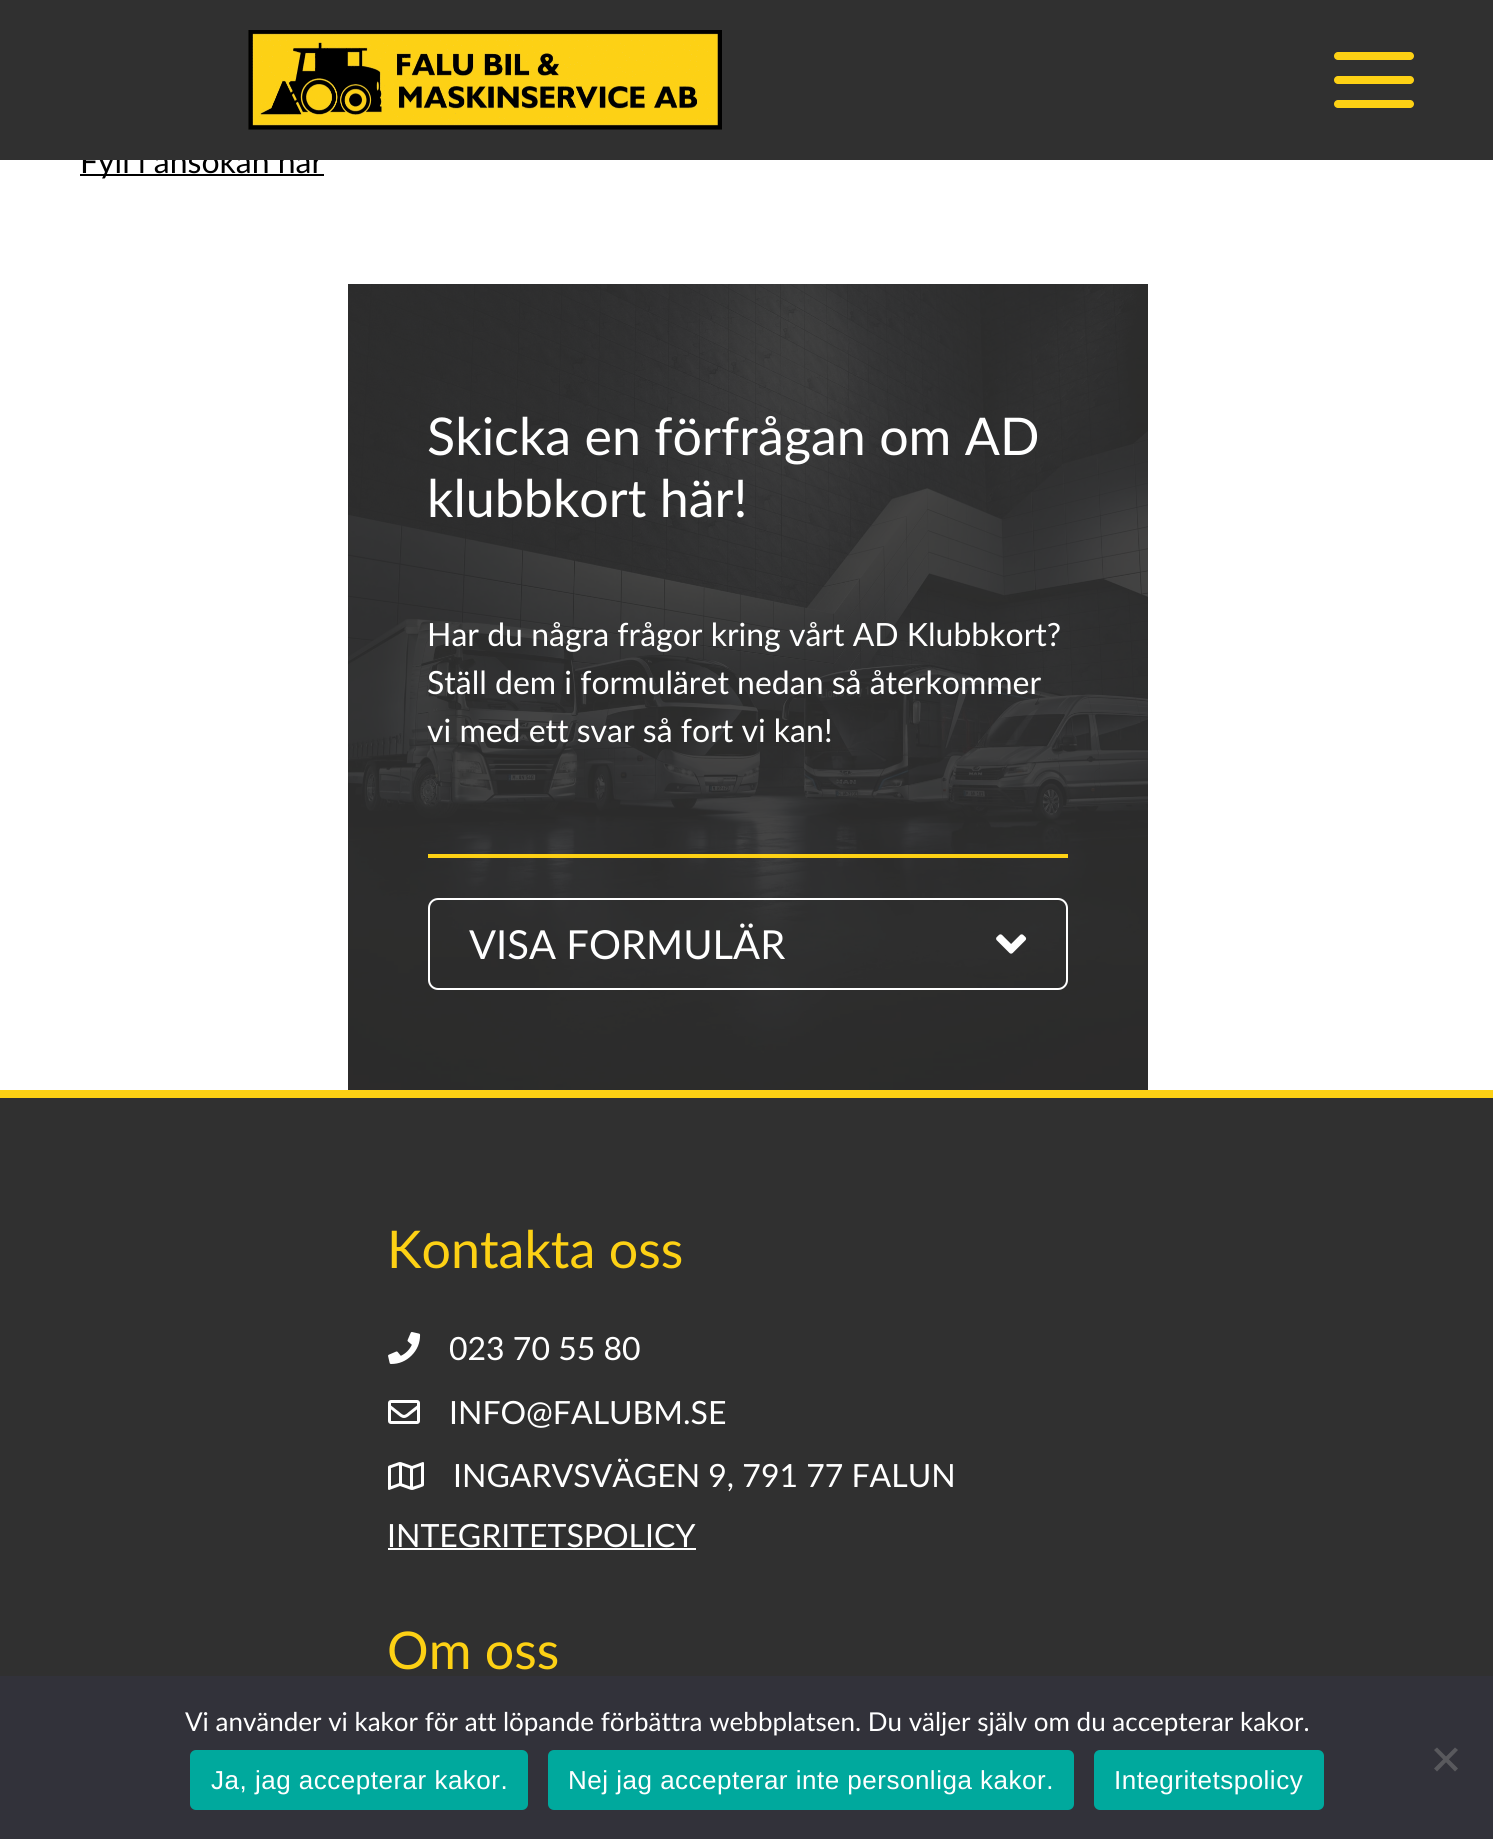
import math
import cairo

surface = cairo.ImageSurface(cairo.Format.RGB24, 1493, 1839)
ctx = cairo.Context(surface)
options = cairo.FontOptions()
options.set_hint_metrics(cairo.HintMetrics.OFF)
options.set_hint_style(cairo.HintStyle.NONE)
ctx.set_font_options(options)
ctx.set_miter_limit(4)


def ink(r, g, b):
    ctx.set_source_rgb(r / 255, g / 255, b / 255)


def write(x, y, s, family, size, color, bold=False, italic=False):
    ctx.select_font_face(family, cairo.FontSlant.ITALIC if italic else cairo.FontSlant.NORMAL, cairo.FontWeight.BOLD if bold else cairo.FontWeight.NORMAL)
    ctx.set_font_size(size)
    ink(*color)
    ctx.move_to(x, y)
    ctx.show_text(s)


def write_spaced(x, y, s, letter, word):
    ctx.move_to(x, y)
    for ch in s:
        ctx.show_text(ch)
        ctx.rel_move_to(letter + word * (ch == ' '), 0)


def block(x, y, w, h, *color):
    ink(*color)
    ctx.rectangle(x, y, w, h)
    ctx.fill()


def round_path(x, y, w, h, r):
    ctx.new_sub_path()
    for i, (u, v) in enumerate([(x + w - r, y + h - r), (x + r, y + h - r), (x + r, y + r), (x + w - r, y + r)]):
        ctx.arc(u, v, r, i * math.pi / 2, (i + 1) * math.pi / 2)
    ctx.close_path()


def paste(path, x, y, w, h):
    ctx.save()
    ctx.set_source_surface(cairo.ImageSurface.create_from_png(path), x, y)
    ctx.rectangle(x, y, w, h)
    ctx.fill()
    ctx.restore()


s1 = dict(family="Lato", size=32, color=(0, 0, 0))
s2 = dict(family="Lato", size=52, color=(255, 255, 255))
s3 = dict(family="Lato", size=32, color=(255, 255, 255))
s4 = dict(family="Lato", size=40, color=(255, 255, 255))
s5 = dict(family="Lato", size=52, color=(253, 209, 20))
s6 = dict(family="Lato", size=26, color=(255, 255, 255))

ink(255, 255, 255)
ctx.paint()
block(80, 174, 244, 2, 0, 0, 0)
write(80, 173, "Fyll i ansökan här", **s1)
block(0, 0, 1493, 160, 48, 48, 48)
paste("pic1.png", 248, 30, 474, 100)
ink(253, 209, 20)
round_path(1334, 76, 80, 8, 4)
ctx.fill()
round_path(1334, 52, 80, 8, 4)
ctx.fill()
round_path(1334, 100, 80, 8, 4)
ctx.fill()
block(0, 1090, 1493, 8, 253, 209, 20)
paste("pic2.png", 348, 284, 800, 806)
write(427, 455, "Skicka en förfrågan om AD", **s2)
write(427, 517, "klubbkort här!", **s2)
write(427, 646, "Har du några frågor kring vårt AD Klubbkort?", **s3)
write(427, 694, "Ställ dem i formuläret nedan så återkommer", **s3)
write(427, 742, "vi med ett svar så fort vi kan!", **s3)
block(428, 854, 640, 4, 253, 209, 20)
round_path(429, 899, 638, 90, 9)
ink(255, 255, 255)
ctx.stroke()
write(469, 959, "VISA FORMULÄR", **s4)
paste("pic3.png", 996, 934, 31, 20)
block(0, 1098, 1493, 578, 48, 48, 48)
write(387, 1268, "Kontakta oss", **s5)
paste("pic4.png", 388, 1332, 33, 32)
write(449, 1360, "023 70 55 80", **s3)
paste("pic5.png", 388, 1400, 32, 24)
write(449, 1424, "INFO@FALUBM.SE", **s3)
paste("pic6.png", 388, 1462, 36, 28)
write(453, 1487, "INGARVSVÄGEN 9, 791 77 FALUN", **s3)
write(387, 1547, "INTEGRITETSPOLICY", **s3)
block(388, 1548, 308, 2, 255, 255, 255)
write(387, 1669, "Om oss", **s5)
block(0, 1676, 1493, 163, 50, 50, 58)
write(185, 1731, "Vi använder vi kakor för att löpande förbättra webbplatsen. Du väljer själv om du accepterar kakor.", **s6)
ink(89, 89, 93)
ctx.new_path()
ctx.move_to(1455, 1747.5)
ctx.line_to(1458, 1750)
ctx.line_to(1437, 1771.5)
ctx.line_to(1434, 1768.5)
ctx.close_path()
ctx.fill()
ctx.new_path()
ctx.move_to(1434, 1750)
ctx.line_to(1437, 1747.5)
ctx.line_to(1458, 1768.5)
ctx.line_to(1455, 1771.5)
ctx.close_path()
ctx.fill()
ink(0, 169, 157)
round_path(190, 1750, 338, 60, 6)
ctx.fill()
ctx.select_font_face("Liberation Sans")
ink(255, 255, 255)
write_spaced(211, 1789, "Ja, jag accepterar kakor.", 0.5, 0)
ink(0, 169, 157)
round_path(548, 1750, 526, 60, 6)
ctx.fill()
ink(255, 255, 255)
write_spaced(568, 1789, "Nej jag accepterar inte personliga kakor.", 0.5, 0)
ink(0, 169, 157)
round_path(1094, 1750, 230, 60, 6)
ctx.fill()
ink(255, 255, 255)
write_spaced(1114, 1789, "Integritetspolicy", 0.5, 0)
surface.write_to_png("screenshot.png")
